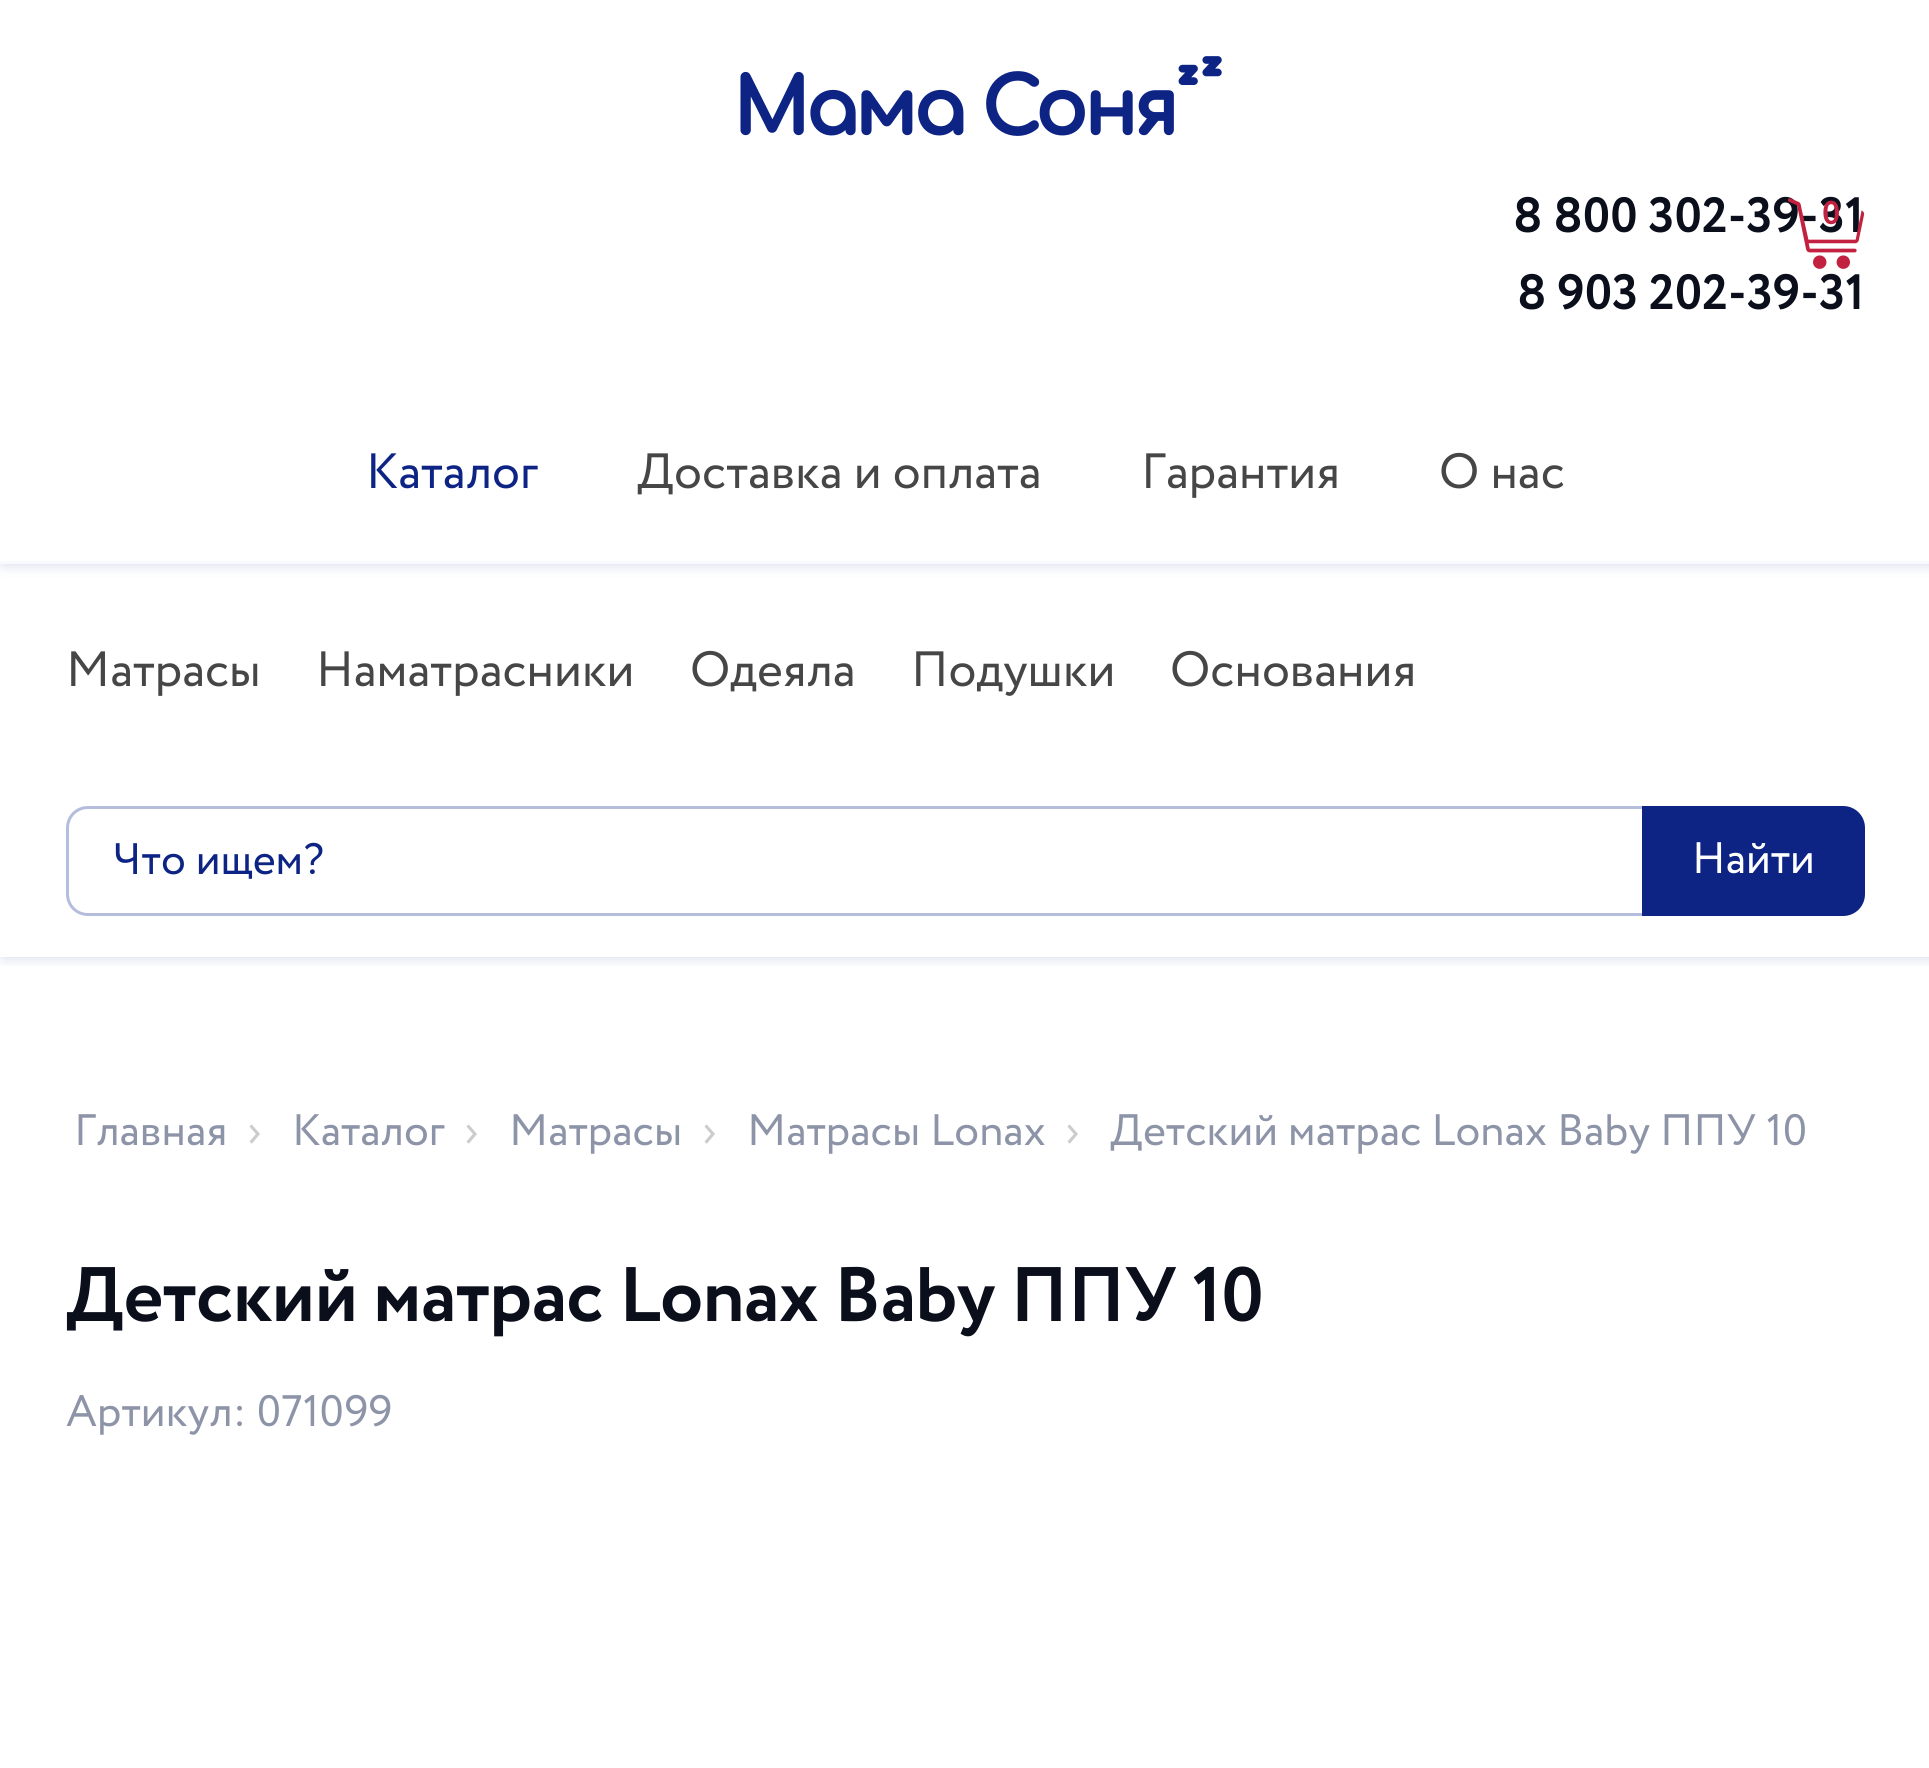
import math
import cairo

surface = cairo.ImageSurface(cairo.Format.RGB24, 1929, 1768)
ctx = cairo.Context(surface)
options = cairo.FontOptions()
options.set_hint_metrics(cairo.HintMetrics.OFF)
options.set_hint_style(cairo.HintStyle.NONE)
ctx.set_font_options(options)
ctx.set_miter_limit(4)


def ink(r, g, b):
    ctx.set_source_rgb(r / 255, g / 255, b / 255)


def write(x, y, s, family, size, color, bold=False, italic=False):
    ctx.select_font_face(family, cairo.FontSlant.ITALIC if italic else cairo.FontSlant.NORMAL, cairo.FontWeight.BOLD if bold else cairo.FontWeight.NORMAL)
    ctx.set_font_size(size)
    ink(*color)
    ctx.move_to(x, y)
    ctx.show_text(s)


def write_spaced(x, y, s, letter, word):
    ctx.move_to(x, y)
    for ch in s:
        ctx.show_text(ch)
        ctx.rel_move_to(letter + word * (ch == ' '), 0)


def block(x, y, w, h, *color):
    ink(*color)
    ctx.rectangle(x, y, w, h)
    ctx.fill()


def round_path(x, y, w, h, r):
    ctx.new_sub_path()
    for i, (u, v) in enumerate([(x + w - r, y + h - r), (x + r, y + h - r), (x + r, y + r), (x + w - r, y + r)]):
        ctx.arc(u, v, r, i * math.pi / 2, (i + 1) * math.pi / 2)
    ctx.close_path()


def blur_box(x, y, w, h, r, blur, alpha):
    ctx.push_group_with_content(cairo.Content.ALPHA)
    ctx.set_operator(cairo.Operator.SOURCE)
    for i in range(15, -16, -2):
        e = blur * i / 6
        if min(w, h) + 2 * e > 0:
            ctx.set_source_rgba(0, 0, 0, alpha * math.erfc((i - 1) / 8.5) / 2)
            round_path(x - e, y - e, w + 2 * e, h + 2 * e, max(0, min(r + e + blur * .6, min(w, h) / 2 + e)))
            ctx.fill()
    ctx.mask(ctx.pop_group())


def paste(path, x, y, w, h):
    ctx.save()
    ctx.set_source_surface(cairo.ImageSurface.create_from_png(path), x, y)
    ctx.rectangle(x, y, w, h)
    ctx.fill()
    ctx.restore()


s1 = dict(family="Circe", size=49.5, color=(11, 15, 28), bold=True)
s2 = dict(family="Circe", size=33, color=(194, 33, 64), bold=True)
s3 = dict(family="Circe", size=49.5, color=(13, 36, 133))
s4 = dict(family="Circe", size=49.5, color=(70, 70, 70))
s5 = dict(family="Circe", size=44, color=(13, 36, 133))
s6 = dict(family="Circe", size=44, color=(255, 255, 255))
s7 = dict(family="Circe", size=44, color=(141, 148, 168))
s8 = dict(family="Circe", size=44, color=(204, 204, 204))

ink(255, 255, 255)
ctx.paint()
ink(25, 47, 139)
blur_box(3, 0, 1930, 564, 0, 7, 0.2)
ctx.save()
ctx.rectangle(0, 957, 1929, 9)
ctx.clip()
blur_box(3, 564, 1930, 393, 0, 7, 0.2)
ctx.restore()
block(0, 0, 1929, 561, 255, 255, 255)
block(0, 561, 1929, 3, 249, 250, 253)
paste("pic1.png", 740, 56, 482, 80)
write(1513, 232, "8 800 302-39-31", **s1)
write(1517, 309, "8 903 202-39-31", **s1)
paste("pic2.png", 1788, 198, 77, 71)
write(1822, 224, "0", **s2)
write(366, 488, "Каталог", **s3)
write(637, 488, "Доставка и оплата", **s4)
write(1141, 488, "Гарантия", **s4)
write(1439, 488, "О нас", **s4)
write(66, 686, "Матрасы", **s4)
write(316, 686, "Наматрасники", **s4)
write(690, 686, "Одеяла", **s4)
write(911, 686, "Подушки", **s4)
write(1170, 686, "Основания", **s4)
ctx.new_path()
ctx.move_to(88, 807.5)
ctx.line_to(1643.5, 807.5)
ctx.line_to(1643.5, 914.5)
ctx.line_to(88, 914.5)
ctx.curve_to(76.5, 914.5, 67.5, 905.5, 67.5, 894)
ctx.line_to(67.5, 828)
ctx.curve_to(67.5, 816.5, 76.5, 807.5, 88, 807.5)
ctx.close_path()
ink(181, 189, 221)
ctx.set_line_width(3)
ctx.stroke()
write(113, 874, "Что ищем?", **s5)
ctx.new_path()
ctx.move_to(1643.5, 807.5)
ctx.line_to(1843, 807.5)
ctx.curve_to(1854.5, 807.5, 1863.5, 816.5, 1863.5, 828)
ctx.line_to(1863.5, 894)
ctx.curve_to(1863.5, 905.5, 1854.5, 914.5, 1843, 914.5)
ctx.line_to(1643.5, 914.5)
ctx.close_path()
ctx.fill_preserve()
ctx.stroke()
write(1692, 873, "Найти", **s6)
write(74, 1145, "Главная", **s7)
write(247, 1145, "›", **s8)
write(292, 1145, "Каталог", **s7)
write(464, 1145, "›", **s8)
write(509, 1145, "Матрасы", **s7)
write(702, 1145, "›", **s8)
write(747, 1145, "Матрасы Lonax", **s7)
write(1065, 1145, "›", **s8)
write(1110, 1145, "Детский матрас Lonax Baby ППУ 10", **s7)
ctx.select_font_face("Circe", cairo.FontSlant.NORMAL, cairo.FontWeight.BOLD)
ctx.set_font_size(77)
ink(11, 15, 28)
write_spaced(66, 1321, "Детский матрас Lonax Baby ППУ 10", -0.75, 0)
write(66, 1426, "Артикул: 071099", **s7)
surface.write_to_png("screenshot.png")
